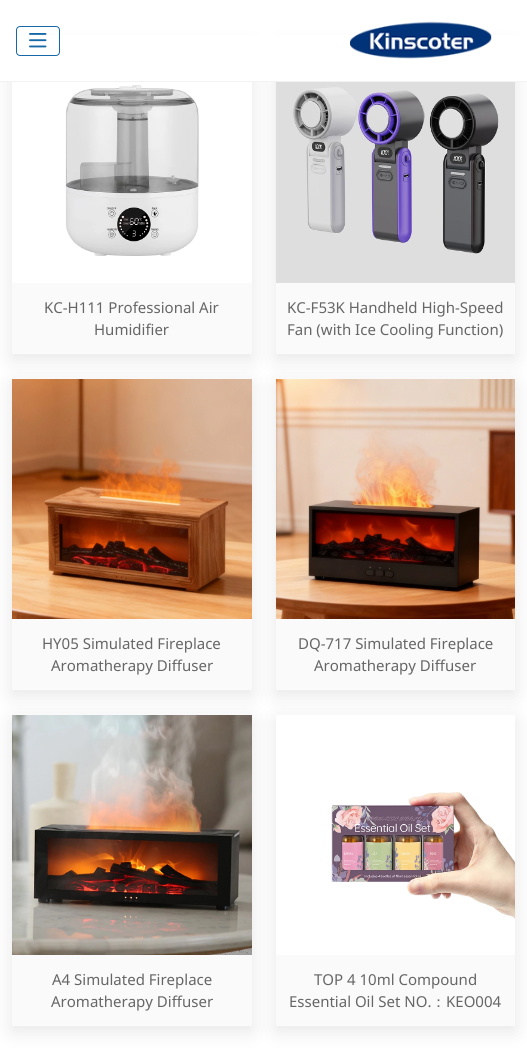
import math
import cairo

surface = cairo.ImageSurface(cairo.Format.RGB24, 527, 1052)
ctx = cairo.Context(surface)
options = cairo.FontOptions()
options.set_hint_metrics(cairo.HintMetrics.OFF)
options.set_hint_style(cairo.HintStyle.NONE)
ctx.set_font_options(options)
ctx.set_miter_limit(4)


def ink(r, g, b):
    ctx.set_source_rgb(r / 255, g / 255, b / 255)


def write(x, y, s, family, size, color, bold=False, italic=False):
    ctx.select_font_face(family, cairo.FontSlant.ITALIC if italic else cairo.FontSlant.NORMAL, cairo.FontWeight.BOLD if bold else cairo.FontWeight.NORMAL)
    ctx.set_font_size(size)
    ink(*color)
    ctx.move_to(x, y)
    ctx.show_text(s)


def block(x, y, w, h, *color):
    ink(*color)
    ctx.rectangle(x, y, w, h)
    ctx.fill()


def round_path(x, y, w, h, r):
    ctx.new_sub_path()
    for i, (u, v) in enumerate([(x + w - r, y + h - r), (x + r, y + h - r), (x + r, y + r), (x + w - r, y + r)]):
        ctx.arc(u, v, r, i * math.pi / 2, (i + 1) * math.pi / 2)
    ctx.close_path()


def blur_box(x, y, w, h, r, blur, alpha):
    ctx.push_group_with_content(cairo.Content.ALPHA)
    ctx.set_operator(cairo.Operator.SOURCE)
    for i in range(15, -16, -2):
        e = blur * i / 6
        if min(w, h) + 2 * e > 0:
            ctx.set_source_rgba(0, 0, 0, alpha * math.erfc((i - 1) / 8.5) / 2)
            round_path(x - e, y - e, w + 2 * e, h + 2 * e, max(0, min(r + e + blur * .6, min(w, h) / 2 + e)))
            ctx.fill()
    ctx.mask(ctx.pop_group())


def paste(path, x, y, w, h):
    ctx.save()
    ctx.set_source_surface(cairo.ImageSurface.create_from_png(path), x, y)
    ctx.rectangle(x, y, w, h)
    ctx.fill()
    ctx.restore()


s1 = dict(family="Noto Sans", size=15, color=(102, 102, 102))
s2 = dict(family="WenQuanYi Zen Hei Medium", size=15, color=(102, 102, 102))

ink(255, 255, 255)
ctx.paint()
ctx.save()
ctx.set_fill_rule(cairo.FillRule.EVEN_ODD)
ctx.new_path()
ctx.move_to(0, 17)
ctx.line_to(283, 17)
ctx.line_to(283, 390)
ctx.line_to(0, 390)
ctx.close_path()
ctx.move_to(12, 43)
ctx.line_to(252, 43)
ctx.line_to(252, 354)
ctx.line_to(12, 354)
ctx.close_path()
ctx.clip()
ink(0, 0, 0)
blur_box(12, 48, 240, 311, 0, 10, 0.1)
ctx.restore()
block(12, 283, 240, 71, 250, 250, 250)
ink(0, 0, 0)
blur_box(276, 48, 239, 311, 0, 10, 0.1)
block(0, 35, 527, 46, 255, 255, 255)
block(0, 81, 527, 1, 242, 242, 242)
round_path(16.5, 26.5, 43, 29, 3.5)
ink(22, 104, 166)
ctx.set_line_width(1)
ctx.stroke()
paste("pic1.png", 29, 33, 18, 15)
paste("pic2.png", 350, 21, 142, 38)
paste("pic3.png", 65, 85, 134, 171)
write(44, 313, "KC-H111 Professional Air", **s1)
write(94, 335, "Humidifier", **s1)
paste("pic4.png", 276, 82, 239, 201)
block(276, 283, 239, 71, 250, 250, 250)
write(287, 313, "KC-F53K Handheld High-Speed", **s1)
write(287, 335, "Fan (with Ice Cooling Function)", **s1)
ink(0, 0, 0)
blur_box(12, 384, 240, 311, 0, 10, 0.1)
paste("pic5.png", 12, 379, 240, 240)
block(12, 619, 240, 71, 250, 250, 250)
write(42, 649, "HY05 Simulated Fireplace", **s1)
write(51, 671, "Aromatherapy Diffuser", **s1)
ink(0, 0, 0)
blur_box(276, 384, 239, 311, 0, 10, 0.1)
paste("pic6.png", 276, 379, 239, 240)
block(276, 619, 239, 71, 250, 250, 250)
write(298, 649, "DQ-717 Simulated Fireplace", **s1)
write(314, 671, "Aromatherapy Diffuser", **s1)
ink(0, 0, 0)
blur_box(12, 720, 240, 311, 0, 10, 0.1)
paste("pic7.png", 12, 715, 240, 240)
block(12, 955, 240, 71, 250, 250, 250)
write(52, 985, "A4 Simulated Fireplace", **s1)
write(51, 1007, "Aromatherapy Diffuser", **s1)
ctx.save()
ctx.set_fill_rule(cairo.FillRule.EVEN_ODD)
ctx.new_path()
ctx.move_to(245, 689)
ctx.line_to(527, 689)
ctx.line_to(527, 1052)
ctx.line_to(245, 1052)
ctx.close_path()
ctx.move_to(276, 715)
ctx.line_to(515, 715)
ctx.line_to(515, 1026)
ctx.line_to(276, 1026)
ctx.close_path()
ctx.clip()
ink(0, 0, 0)
blur_box(276, 720, 239, 311, 0, 10, 0.1)
ctx.restore()
paste("pic8.png", 331, 792, 184, 127)
block(276, 955, 239, 71, 250, 250, 250)
write(314, 985, "TOP 4 10ml Compound", **s1)
write(289, 1007, "Essential Oil Set NO.", **s1)
write(431, 1007, "：", **s2)
write(446, 1007, "KEO004", **s1)
surface.write_to_png("screenshot.png")
